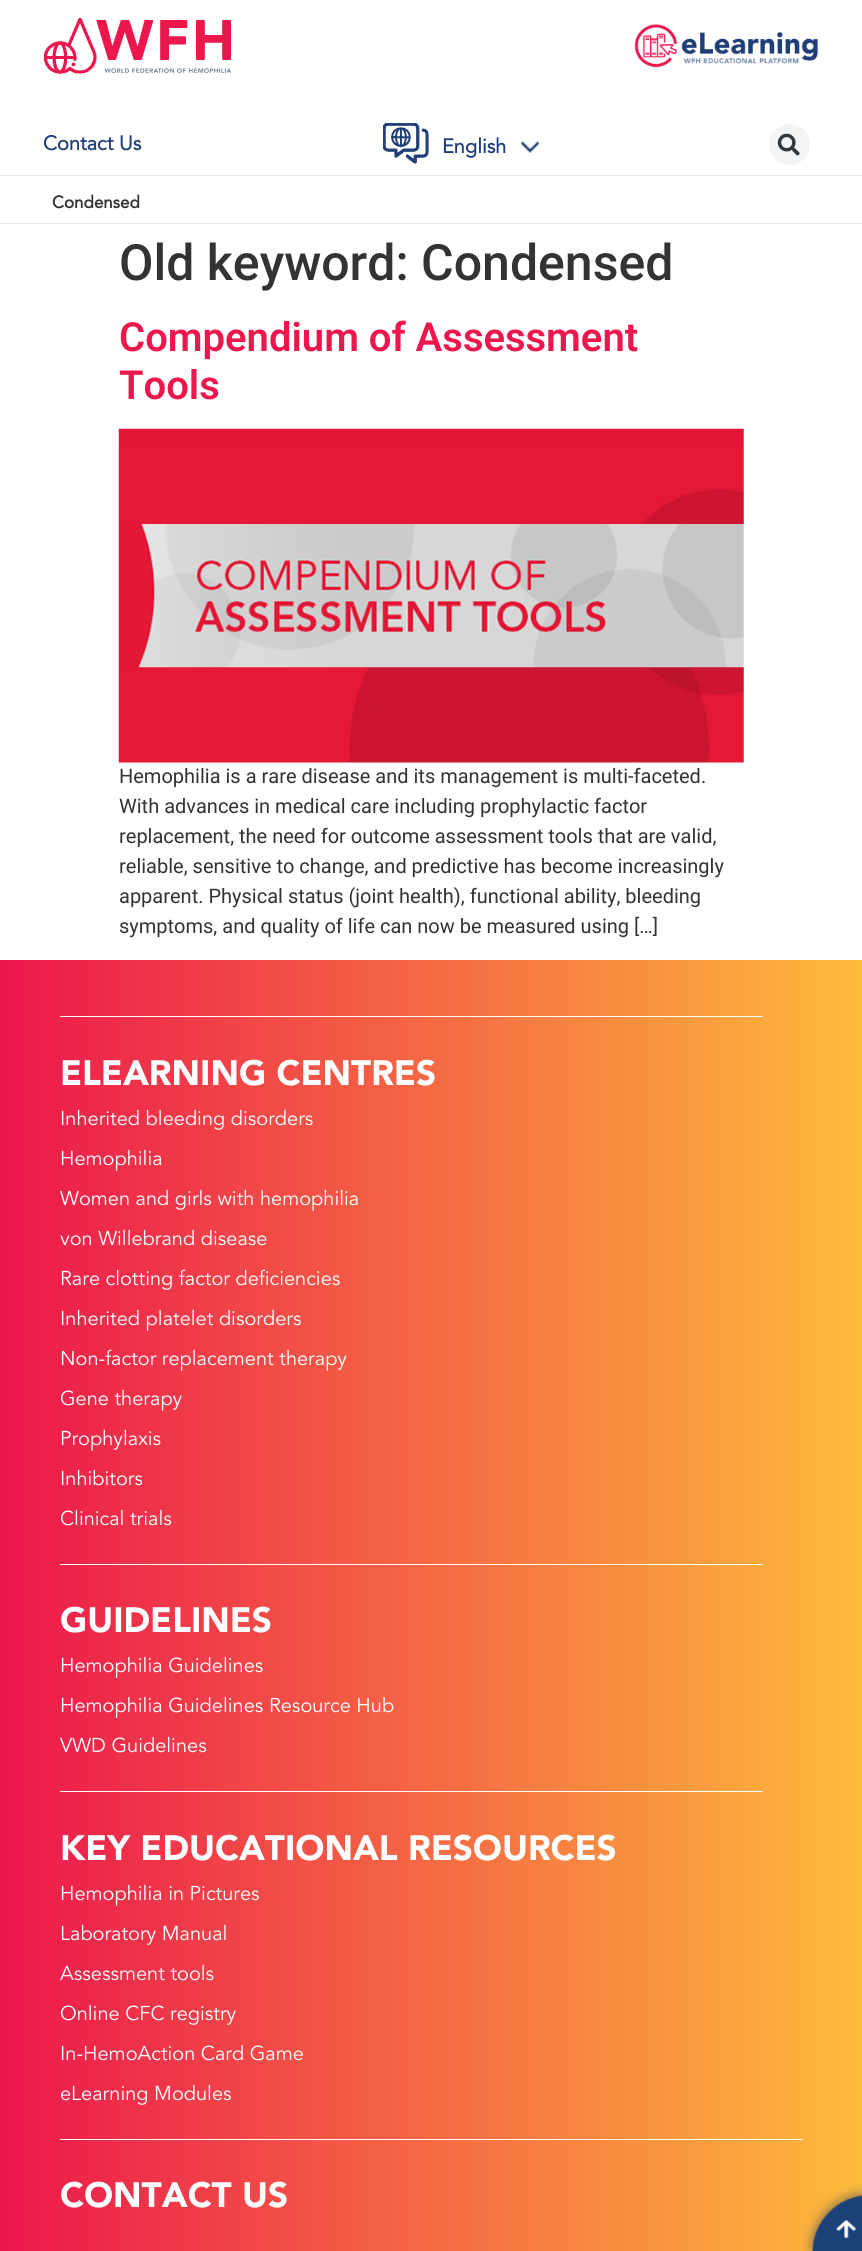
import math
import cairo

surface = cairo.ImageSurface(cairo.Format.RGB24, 862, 2251)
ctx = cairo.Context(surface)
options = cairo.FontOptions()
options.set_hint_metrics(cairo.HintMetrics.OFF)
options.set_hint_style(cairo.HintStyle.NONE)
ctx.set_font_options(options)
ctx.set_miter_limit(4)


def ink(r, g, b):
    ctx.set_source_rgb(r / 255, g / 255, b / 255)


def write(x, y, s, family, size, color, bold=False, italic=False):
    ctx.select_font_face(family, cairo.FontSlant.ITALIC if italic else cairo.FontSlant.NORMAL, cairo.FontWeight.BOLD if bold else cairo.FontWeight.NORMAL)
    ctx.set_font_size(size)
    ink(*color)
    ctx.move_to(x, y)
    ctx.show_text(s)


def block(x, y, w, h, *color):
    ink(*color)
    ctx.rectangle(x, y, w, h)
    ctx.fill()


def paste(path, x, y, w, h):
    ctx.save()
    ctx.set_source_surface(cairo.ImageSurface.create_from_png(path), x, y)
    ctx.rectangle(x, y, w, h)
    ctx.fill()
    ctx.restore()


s1 = dict(family="Avenir", size=20, color=(31, 63, 120), bold=True)
s2 = dict(family="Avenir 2", size=17, color=(51, 51, 51), bold=True)
s3 = dict(family="Roboto Medium", size=50, color=(51, 51, 51))
s4 = dict(family="Roboto SemiBold", size=40, color=(236, 23, 76))
s5 = dict(family="Roboto", size=20, color=(51, 51, 51))
s6 = dict(family="Avenir Black", size=35, color=(255, 255, 255))
s7 = dict(family="Avenir", size=20, color=(255, 255, 255))

ink(255, 255, 255)
ctx.paint()
paste("pic1.png", 44, 18, 187, 56)
paste("pic2.png", 634, 24, 184, 44)
write(43, 150, "Contact Us", **s1)
paste("pic3.png", 383, 123, 46, 41)
write(442, 153, "English", **s1)
paste("pic4.png", 520, 141, 20, 12)
ink(242, 244, 245)
ctx.arc(789.5, 144.5, 20.5, 0, 2 * math.pi)
ctx.fill()
paste("pic5.png", 777, 133, 23, 23)
block(0, 175, 862, 1, 231, 231, 231)
block(0, 223, 862, 1, 231, 231, 231)
write(52, 208, "Condensed", **s2)
write(119, 280, "Old keyword: Condensed", **s3)
write(119, 351, "Compendium of Assessment", **s4)
write(119, 399, "Tools", **s4)
paste("pic6.png", 118, 428, 626, 335)
write(119, 783, "Hemophilia is a rare disease and its management is multi-faceted.", **s5)
write(119, 813, "With advances in medical care including prophylactic factor", **s5)
write(119, 843, "replacement, the need for outcome assessment tools that are valid,", **s5)
write(119, 873, "reliable, sensitive to change, and predictive has become increasingly", **s5)
write(119, 903, "apparent. Physical status (joint health), functional ability, bleeding", **s5)
write(119, 933, "symptoms, and quality of life can now be measured using […]", **s5)
gradient = cairo.LinearGradient(0, 2162, 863, 2162)
gradient.add_color_stop_rgba(0, 0.925, 0.09, 0.298, 1)
gradient.add_color_stop_rgba(1, 0.992, 0.737, 0.235, 1)
ctx.set_source(gradient)
ctx.rectangle(0, 960, 862, 1291)
ctx.fill()
block(60, 1016, 703, 1, 255, 255, 255)
write(60, 1085, "ELEARNING CENTRES", **s6)
write(60, 1125, "Inherited bleeding disorders", **s7)
write(60, 1165, "Hemophilia", **s7)
write(60, 1205, "Women and girls with hemophilia", **s7)
write(60, 1245, "von Willebrand disease", **s7)
write(60, 1285, "Rare clotting factor deficiencies", **s7)
write(60, 1325, "Inherited platelet disorders", **s7)
write(60, 1365, "Non-factor replacement therapy", **s7)
write(60, 1405, "Gene therapy", **s7)
write(60, 1445, "Prophylaxis", **s7)
write(60, 1485, "Inhibitors", **s7)
write(60, 1525, "Clinical trials", **s7)
block(60, 1564, 703, 1, 255, 255, 255)
write(60, 1632, "GUIDELINES", **s6)
write(60, 1672, "Hemophilia Guidelines", **s7)
write(60, 1712, "Hemophilia Guidelines Resource Hub", **s7)
write(60, 1752, "VWD Guidelines", **s7)
block(60, 1791, 703, 1, 255, 255, 255)
write(60, 1860, "KEY EDUCATIONAL RESOURCES", **s6)
write(60, 1900, "Hemophilia in Pictures", **s7)
write(60, 1940, "Laboratory Manual", **s7)
write(60, 1980, "Assessment tools", **s7)
write(60, 2020, "Online CFC registry", **s7)
write(60, 2060, "In-HemoAction Card Game", **s7)
write(60, 2100, "eLearning Modules", **s7)
block(60, 2139, 743, 1, 255, 255, 255)
write(60, 2207, "CONTACT US", **s6)
paste("pic7.png", 802, 2184, 60, 67)
surface.write_to_png("screenshot.png")
